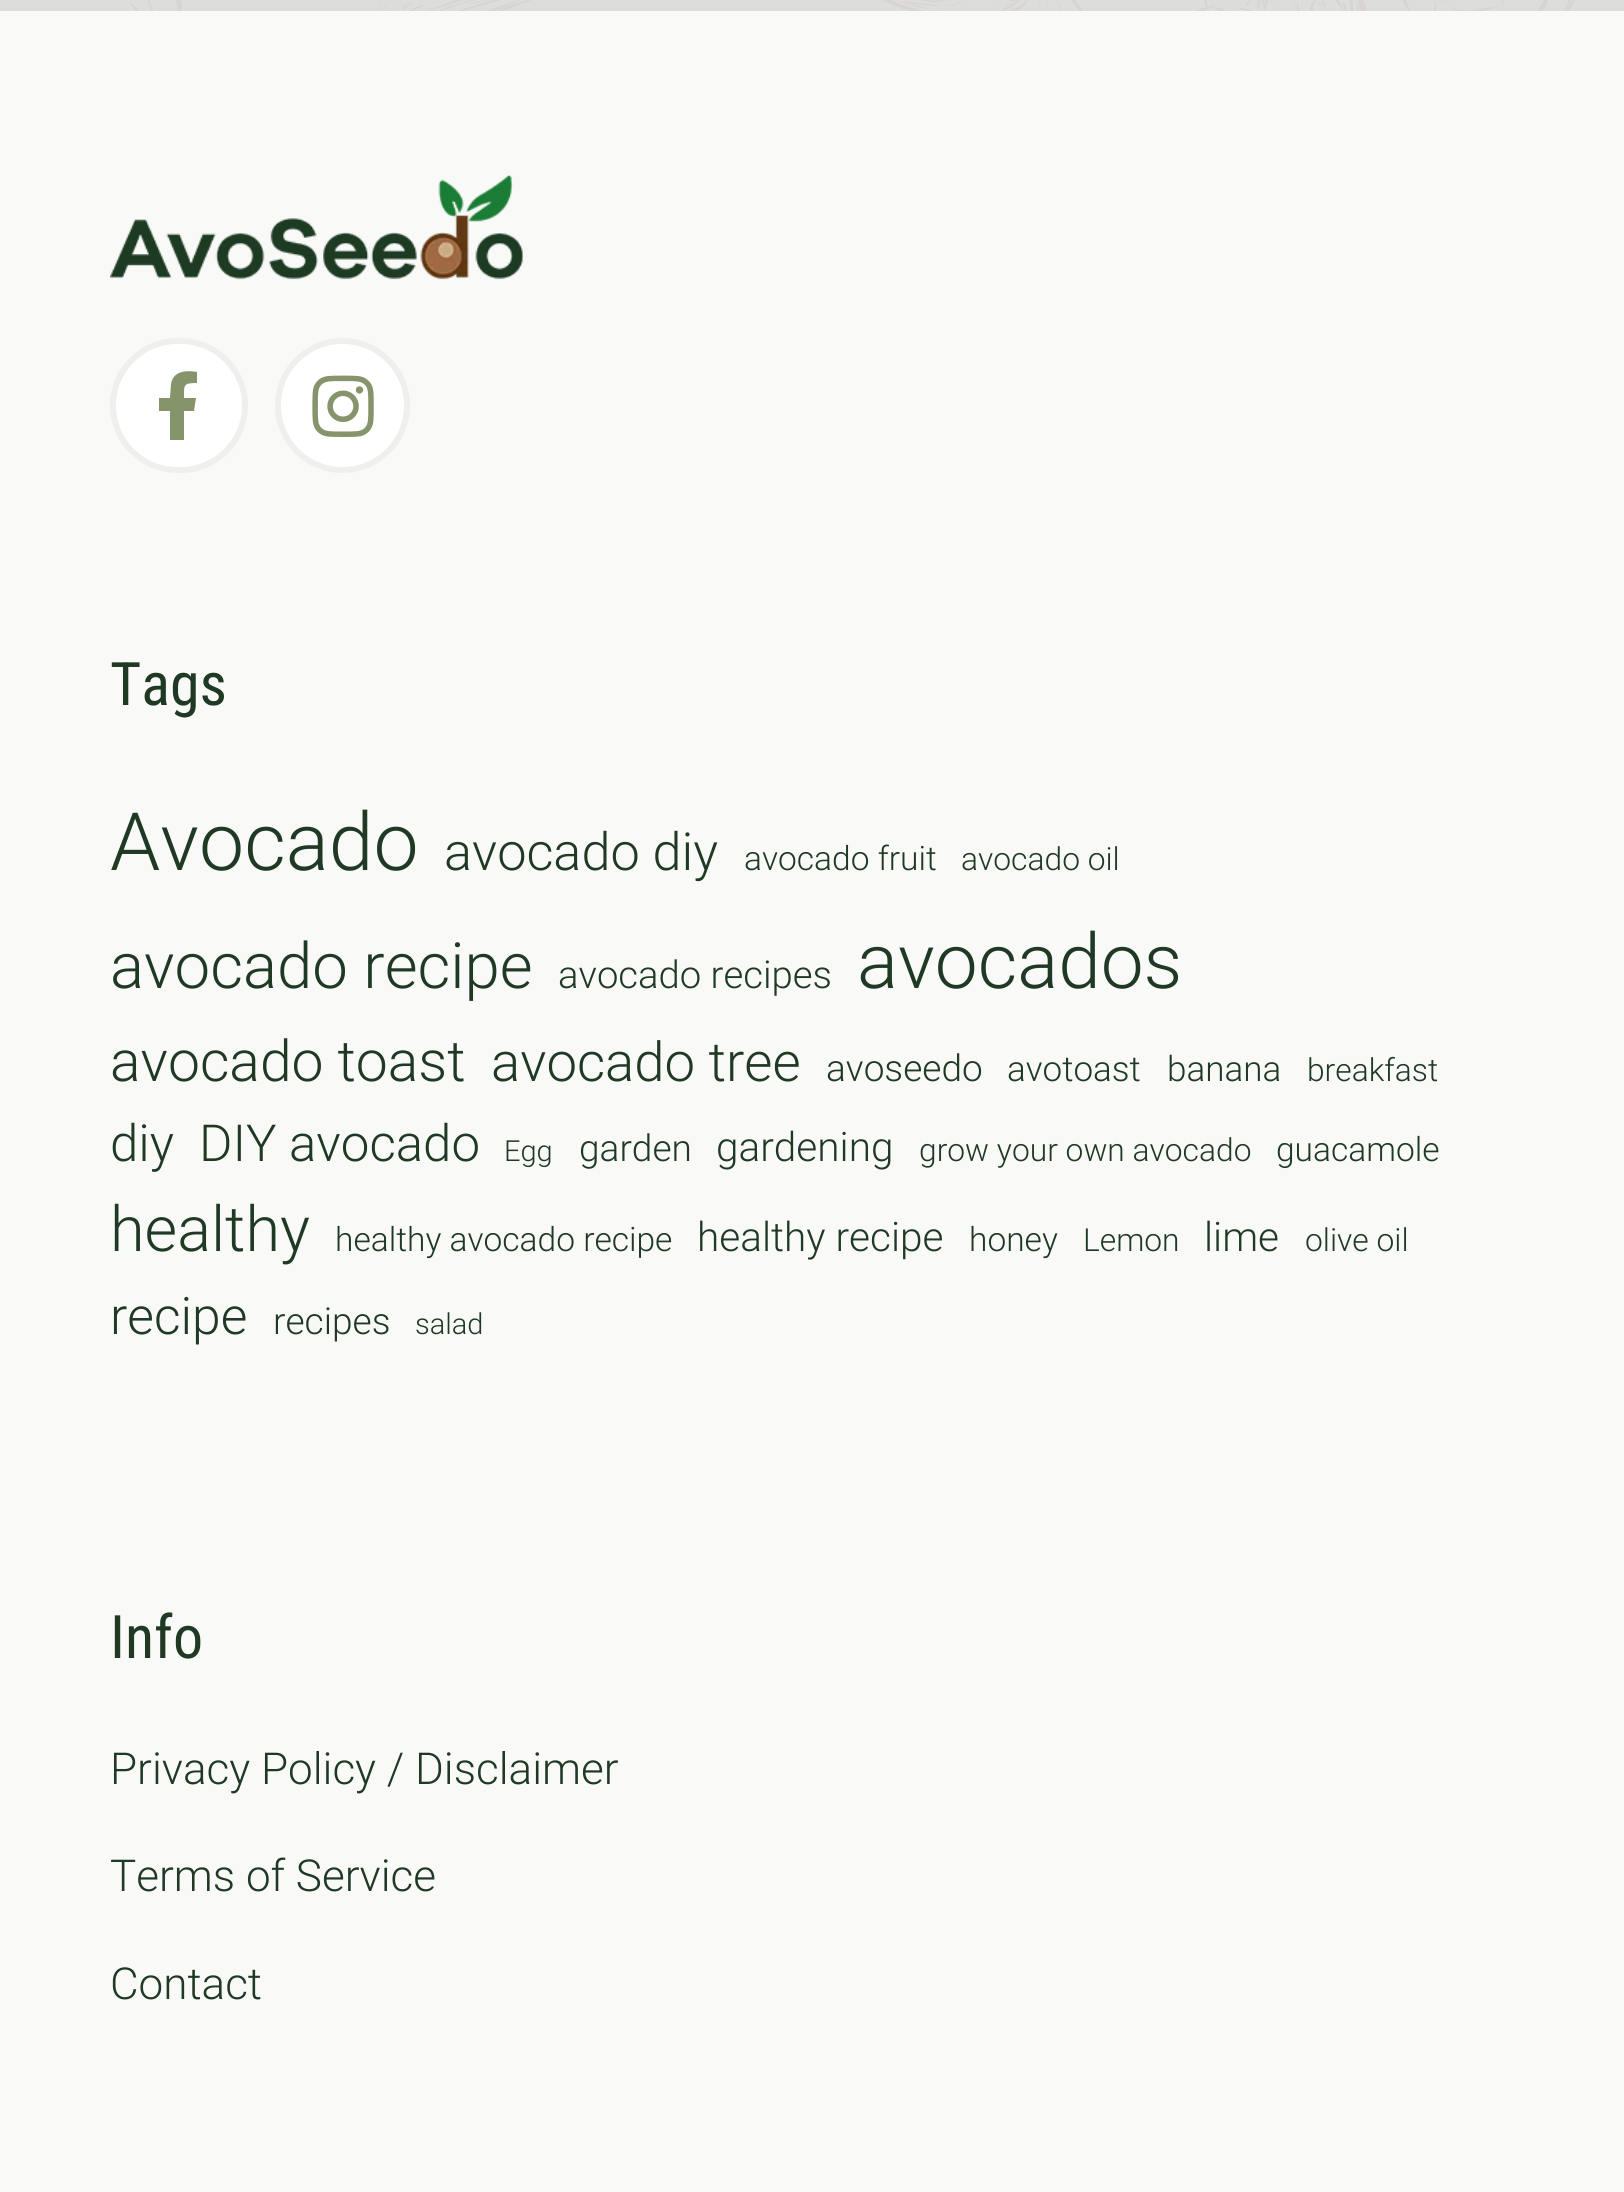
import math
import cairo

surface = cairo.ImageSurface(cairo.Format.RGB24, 1624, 2192)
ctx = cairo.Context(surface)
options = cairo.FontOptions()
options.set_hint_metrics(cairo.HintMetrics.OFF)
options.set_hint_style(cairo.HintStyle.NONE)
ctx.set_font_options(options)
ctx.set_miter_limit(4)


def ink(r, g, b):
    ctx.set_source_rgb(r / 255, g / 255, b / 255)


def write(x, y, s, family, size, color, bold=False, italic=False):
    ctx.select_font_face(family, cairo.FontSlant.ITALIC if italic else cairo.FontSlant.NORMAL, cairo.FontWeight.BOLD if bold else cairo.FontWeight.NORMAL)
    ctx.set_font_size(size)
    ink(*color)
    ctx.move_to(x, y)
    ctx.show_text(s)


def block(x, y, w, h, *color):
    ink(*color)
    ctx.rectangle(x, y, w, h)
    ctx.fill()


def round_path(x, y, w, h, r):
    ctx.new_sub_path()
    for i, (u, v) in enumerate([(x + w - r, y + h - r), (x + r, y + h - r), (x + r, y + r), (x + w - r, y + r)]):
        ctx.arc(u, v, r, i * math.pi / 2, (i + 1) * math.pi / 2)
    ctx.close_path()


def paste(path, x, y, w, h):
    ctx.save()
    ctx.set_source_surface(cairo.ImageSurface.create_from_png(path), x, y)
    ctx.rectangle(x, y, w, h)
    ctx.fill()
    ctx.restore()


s1 = dict(family="Roboto Condensed", size=60, color=(31, 57, 36))
s2 = dict(family="Roboto Light", size=80.5, color=(31, 57, 36))
s3 = dict(family="Roboto Light", size=52.25, color=(31, 57, 36))
s4 = dict(family="Roboto Light", size=33.5, color=(31, 57, 36))
s5 = dict(family="Roboto Light", size=31.75, color=(31, 57, 36))
s6 = dict(family="Roboto Light", size=63.5, color=(31, 57, 36))
s7 = dict(family="Roboto Light", size=38.25, color=(31, 57, 36))
s8 = dict(family="Roboto Light", size=76.5, color=(31, 57, 36))
s9 = dict(family="Roboto Light", size=57, color=(31, 57, 36))
s10 = dict(family="Roboto Light", size=54.5, color=(31, 57, 36))
s11 = dict(family="Roboto Light", size=37, color=(31, 57, 36))
s12 = dict(family="Roboto Light", size=35, color=(31, 57, 36))
s13 = dict(family="Roboto Light", size=51, color=(31, 57, 36))
s14 = dict(family="Roboto Light", size=29, color=(31, 57, 36))
s15 = dict(family="Roboto Light", size=40.5, color=(31, 57, 36))
s16 = dict(family="Roboto Light", size=63, color=(31, 57, 36))
s17 = dict(family="Roboto Light", size=51.5, color=(31, 57, 36))
s18 = dict(family="Roboto Light", size=44, color=(31, 57, 36))

ink(221, 221, 221)
ctx.paint()
paste("pic1.png", 130, 0, 1445, 11)
block(0, 11, 1624, 2181, 249, 249, 247)
paste("pic2.png", 110, 175, 413, 105)
ink(255, 255, 255)
round_path(113, 341, 132, 129, 64.5)
ctx.fill_preserve()
ink(239, 239, 237)
ctx.set_line_width(6)
ctx.stroke()
ctx.save()
ctx.rectangle(143, 371, 72, 69)
ctx.clip()
ink(133, 148, 106)
ctx.new_path()
ctx.move_to(194, 411)
ctx.line_to(196, 398)
ctx.line_to(184, 398)
ctx.curve_to(184, 385, 183, 383, 197, 383)
ctx.line_to(197, 372)
ctx.curve_to(186, 370, 173, 371, 171, 384)
ctx.line_to(170, 398)
ctx.line_to(159, 398)
ctx.line_to(159, 411)
ctx.line_to(170, 411)
ctx.line_to(170, 441)
ctx.line_to(184, 441)
ctx.line_to(184, 411)
ctx.close_path()
ctx.fill()
ctx.restore()
ink(255, 255, 255)
ctx.arc(342.5, 405.5, 64.5, 0, 2 * math.pi)
ctx.fill_preserve()
ink(239, 239, 237)
ctx.stroke()
paste("pic3.png", 312, 375, 62, 62)
write(110, 705, "Tags", **s1)
write(110, 870, "Avocado", **s2)
write(444, 870, "avocado diy", **s3)
write(744, 870, "avocado fruit", **s4)
write(961, 870, "avocado oil", **s5)
write(110, 988, "avocado recipe", **s6)
write(558, 988, "avocado recipes", **s7)
write(857, 988, "avocados", **s8)
write(110, 1081, "avocado toast", **s9)
write(491, 1081, "avocado tree", **s10)
write(826, 1081, "avoseedo", **s11)
write(1007, 1081, "avotoast", **s12)
write(1167, 1081, "banana", **s12)
write(1307, 1081, "breakfast", **s5)
write(110, 1161, "diy", **s13)
write(199, 1161, "DIY avocado", **s13)
write(504, 1161, "Egg", **s14)
write(579, 1161, "garden", **s11)
write(716, 1161, "gardening", **s15)
write(919, 1161, "grow your own avocado", **s5)
write(1276, 1161, "guacamole", **s4)
write(110, 1251, "healthy", **s16)
write(335, 1251, "healthy avocado recipe", **s4)
write(697, 1251, "healthy recipe", **s15)
write(969, 1251, "honey", **s4)
write(1083, 1251, "Lemon", **s5)
write(1204, 1251, "lime", **s15)
write(1305, 1251, "olive oil", **s5)
write(110, 1334, "recipe", **s17)
write(273, 1334, "recipes", **s11)
write(415, 1334, "salad", **s14)
write(110, 1658, "Info", **s1)
write(110, 1784, "Privacy Policy / Disclaimer", **s18)
write(110, 1891, "Terms of Service", **s18)
write(110, 1999, "Contact", **s18)
surface.write_to_png("screenshot.png")
